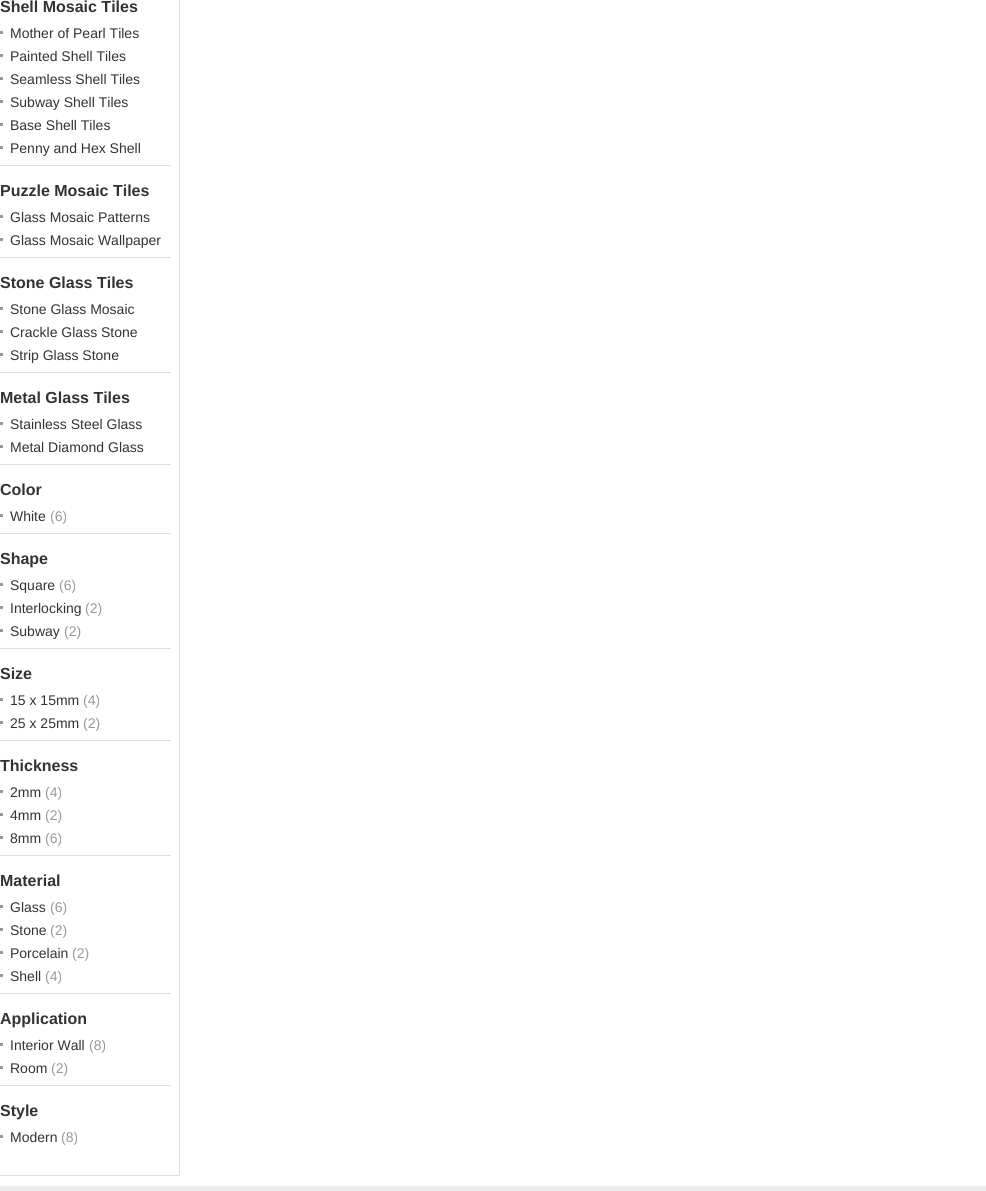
import math
import cairo

surface = cairo.ImageSurface(cairo.Format.RGB24, 986, 1191)
ctx = cairo.Context(surface)
options = cairo.FontOptions()
options.set_hint_metrics(cairo.HintMetrics.OFF)
options.set_hint_style(cairo.HintStyle.NONE)
ctx.set_font_options(options)
ctx.set_miter_limit(4)


def ink(r, g, b):
    ctx.set_source_rgb(r / 255, g / 255, b / 255)


def write(x, y, s, family, size, color, bold=False, italic=False):
    ctx.select_font_face(family, cairo.FontSlant.ITALIC if italic else cairo.FontSlant.NORMAL, cairo.FontWeight.BOLD if bold else cairo.FontWeight.NORMAL)
    ctx.set_font_size(size)
    ink(*color)
    ctx.move_to(x, y)
    ctx.show_text(s)


def block(x, y, w, h, *color):
    ink(*color)
    ctx.rectangle(x, y, w, h)
    ctx.fill()


s1 = dict(family="Liberation Sans", size=16, color=(51, 51, 51), bold=True)
s2 = dict(family="Liberation Sans", size=14, color=(51, 51, 51))
s3 = dict(family="Liberation Sans", size=14, color=(153, 153, 153))

ink(255, 255, 255)
ctx.paint()
block(179, 0, 1, 1176, 221, 221, 221)
block(0, 1175, 180, 1, 221, 221, 221)
block(0, 165, 171, 1, 221, 221, 221)
write(0, 12, "Shell Mosaic Tiles", **s1)
block(0, 31, 3, 3, 153, 153, 153)
write(10, 38, "Mother of Pearl Tiles", **s2)
block(0, 54, 3, 3, 153, 153, 153)
write(10, 61, "Painted Shell Tiles", **s2)
block(0, 77, 3, 3, 153, 153, 153)
write(10, 84, "Seamless Shell Tiles", **s2)
block(0, 100, 3, 3, 153, 153, 153)
write(10, 107, "Subway Shell Tiles", **s2)
block(0, 123, 3, 3, 153, 153, 153)
write(10, 130, "Base Shell Tiles", **s2)
block(0, 146, 3, 3, 153, 153, 153)
write(10, 153, "Penny and Hex Shell", **s2)
block(0, 257, 171, 1, 221, 221, 221)
write(0, 196, "Puzzle Mosaic Tiles", **s1)
block(0, 215, 3, 3, 153, 153, 153)
write(10, 222, "Glass Mosaic Patterns", **s2)
block(0, 238, 3, 3, 153, 153, 153)
write(10, 245, "Glass Mosaic Wallpaper", **s2)
block(0, 372, 171, 1, 221, 221, 221)
write(0, 288, "Stone Glass Tiles", **s1)
block(0, 307, 3, 3, 153, 153, 153)
write(10, 314, "Stone Glass Mosaic", **s2)
block(0, 330, 3, 3, 153, 153, 153)
write(10, 337, "Crackle Glass Stone", **s2)
block(0, 353, 3, 3, 153, 153, 153)
write(10, 360, "Strip Glass Stone", **s2)
block(0, 464, 171, 1, 221, 221, 221)
write(0, 403, "Metal Glass Tiles", **s1)
block(0, 422, 3, 3, 153, 153, 153)
write(10, 429, "Stainless Steel Glass", **s2)
block(0, 445, 3, 3, 153, 153, 153)
write(10, 452, "Metal Diamond Glass", **s2)
block(0, 533, 171, 1, 221, 221, 221)
write(0, 495, "Color", **s1)
block(0, 514, 3, 3, 153, 153, 153)
write(10, 521, "White", **s2)
write(50, 521, "(6)", **s3)
block(0, 648, 171, 1, 221, 221, 221)
write(0, 564, "Shape", **s1)
block(0, 583, 3, 3, 153, 153, 153)
write(10, 590, "Square", **s2)
write(59, 590, "(6)", **s3)
block(0, 606, 3, 3, 153, 153, 153)
write(10, 613, "Interlocking", **s2)
write(85, 613, "(2)", **s3)
block(0, 629, 3, 3, 153, 153, 153)
write(10, 636, "Subway", **s2)
write(64, 636, "(2)", **s3)
block(0, 740, 171, 1, 221, 221, 221)
write(0, 679, "Size", **s1)
block(0, 698, 3, 3, 153, 153, 153)
write(10, 705, "15 x 15mm", **s2)
write(83, 705, "(4)", **s3)
block(0, 721, 3, 3, 153, 153, 153)
write(10, 728, "25 x 25mm", **s2)
write(83, 728, "(2)", **s3)
block(0, 855, 171, 1, 221, 221, 221)
write(0, 771, "Thickness", **s1)
block(0, 790, 3, 3, 153, 153, 153)
write(10, 797, "2mm", **s2)
write(45, 797, "(4)", **s3)
block(0, 813, 3, 3, 153, 153, 153)
write(10, 820, "4mm", **s2)
write(45, 820, "(2)", **s3)
block(0, 836, 3, 3, 153, 153, 153)
write(10, 843, "8mm", **s2)
write(45, 843, "(6)", **s3)
block(0, 993, 171, 1, 221, 221, 221)
write(0, 886, "Material", **s1)
block(0, 905, 3, 3, 153, 153, 153)
write(10, 912, "Glass", **s2)
write(50, 912, "(6)", **s3)
block(0, 928, 3, 3, 153, 153, 153)
write(10, 935, "Stone", **s2)
write(50, 935, "(2)", **s3)
block(0, 951, 3, 3, 153, 153, 153)
write(10, 958, "Porcelain", **s2)
write(72, 958, "(2)", **s3)
block(0, 974, 3, 3, 153, 153, 153)
write(10, 981, "Shell", **s2)
write(45, 981, "(4)", **s3)
block(0, 1085, 171, 1, 221, 221, 221)
write(0, 1024, "Application", **s1)
block(0, 1043, 3, 3, 153, 153, 153)
write(10, 1050, "Interior Wall", **s2)
write(89, 1050, "(8)", **s3)
block(0, 1066, 3, 3, 153, 153, 153)
write(10, 1073, "Room", **s2)
write(51, 1073, "(2)", **s3)
write(0, 1116, "Style", **s1)
block(0, 1135, 3, 3, 153, 153, 153)
write(10, 1142, "Modern", **s2)
write(61, 1142, "(8)", **s3)
block(0, 1186, 986, 5, 237, 237, 237)
surface.write_to_png("screenshot.png")
